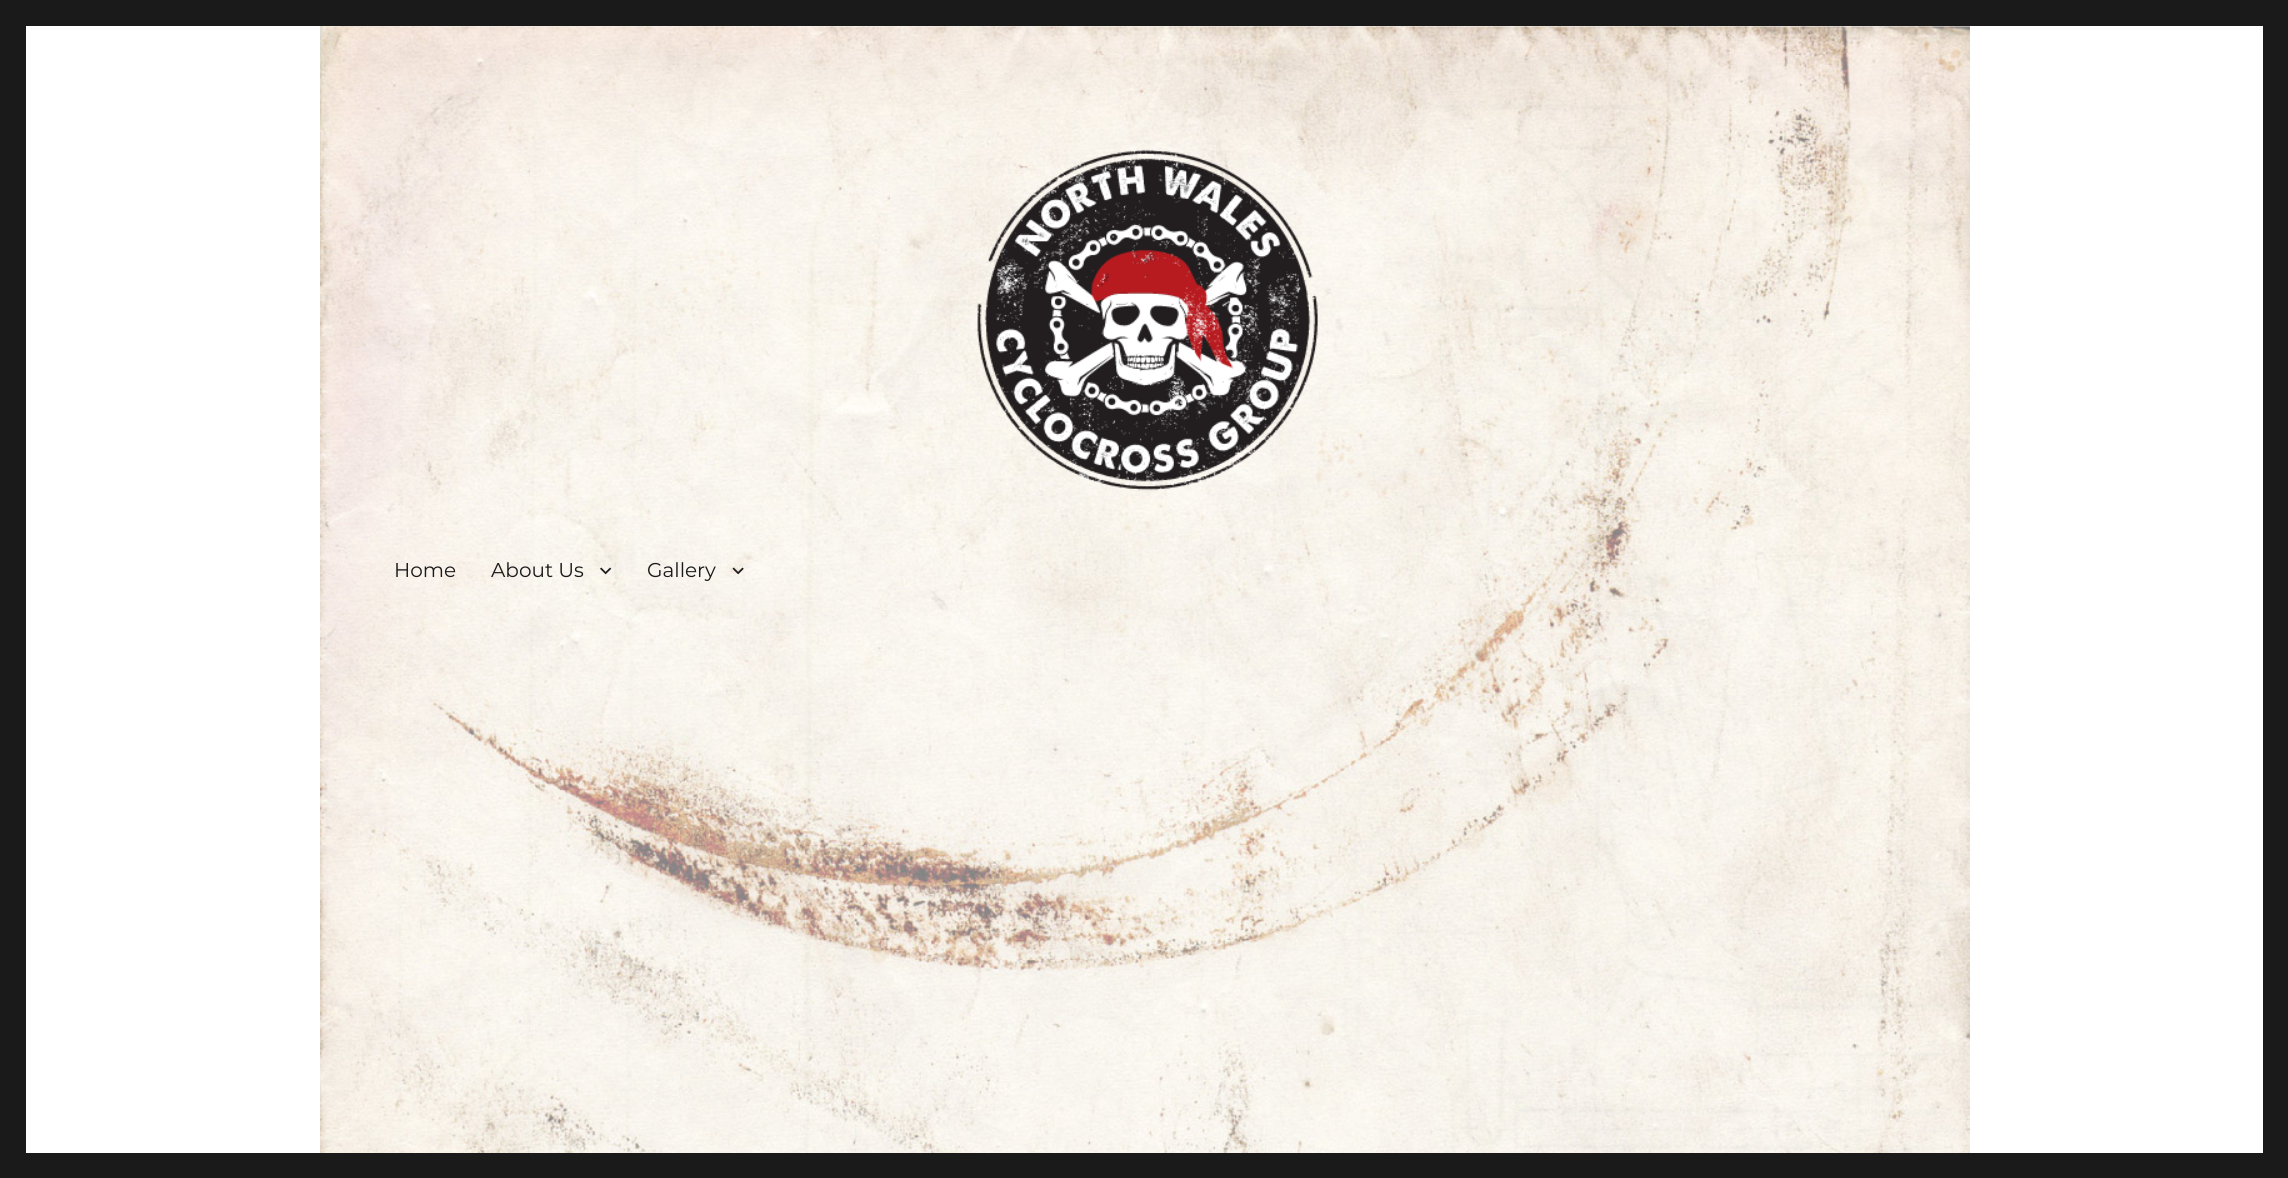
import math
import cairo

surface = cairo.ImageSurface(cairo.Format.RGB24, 2288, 1178)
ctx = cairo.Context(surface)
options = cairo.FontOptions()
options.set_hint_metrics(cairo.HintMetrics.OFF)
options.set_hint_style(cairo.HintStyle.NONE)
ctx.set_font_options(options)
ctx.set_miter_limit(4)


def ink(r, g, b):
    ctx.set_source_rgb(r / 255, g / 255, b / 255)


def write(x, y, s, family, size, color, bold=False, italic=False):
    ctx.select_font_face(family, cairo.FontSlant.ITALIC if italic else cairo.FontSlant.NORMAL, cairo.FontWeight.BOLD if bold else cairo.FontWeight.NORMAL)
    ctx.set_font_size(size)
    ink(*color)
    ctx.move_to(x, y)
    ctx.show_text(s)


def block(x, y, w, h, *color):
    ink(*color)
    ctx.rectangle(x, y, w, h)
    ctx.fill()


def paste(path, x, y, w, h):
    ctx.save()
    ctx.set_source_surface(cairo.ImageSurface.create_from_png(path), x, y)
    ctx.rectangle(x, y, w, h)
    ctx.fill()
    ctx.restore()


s1 = dict(family="Montserrat", size=20, color=(26, 26, 26))

ink(26, 26, 26)
ctx.paint()
block(26, 26, 2237, 1127, 255, 255, 255)
paste("pic1.png", 320, 26, 1650, 1127)
paste("pic2.png", 977, 147, 341, 344)
write(394, 577, "Home", **s1)
write(491, 577, "About Us", **s1)
paste("pic3.png", 600, 567, 12, 8)
write(647, 577, "Gallery", **s1)
paste("pic4.png", 732, 567, 12, 8)
surface.write_to_png("screenshot.png")
